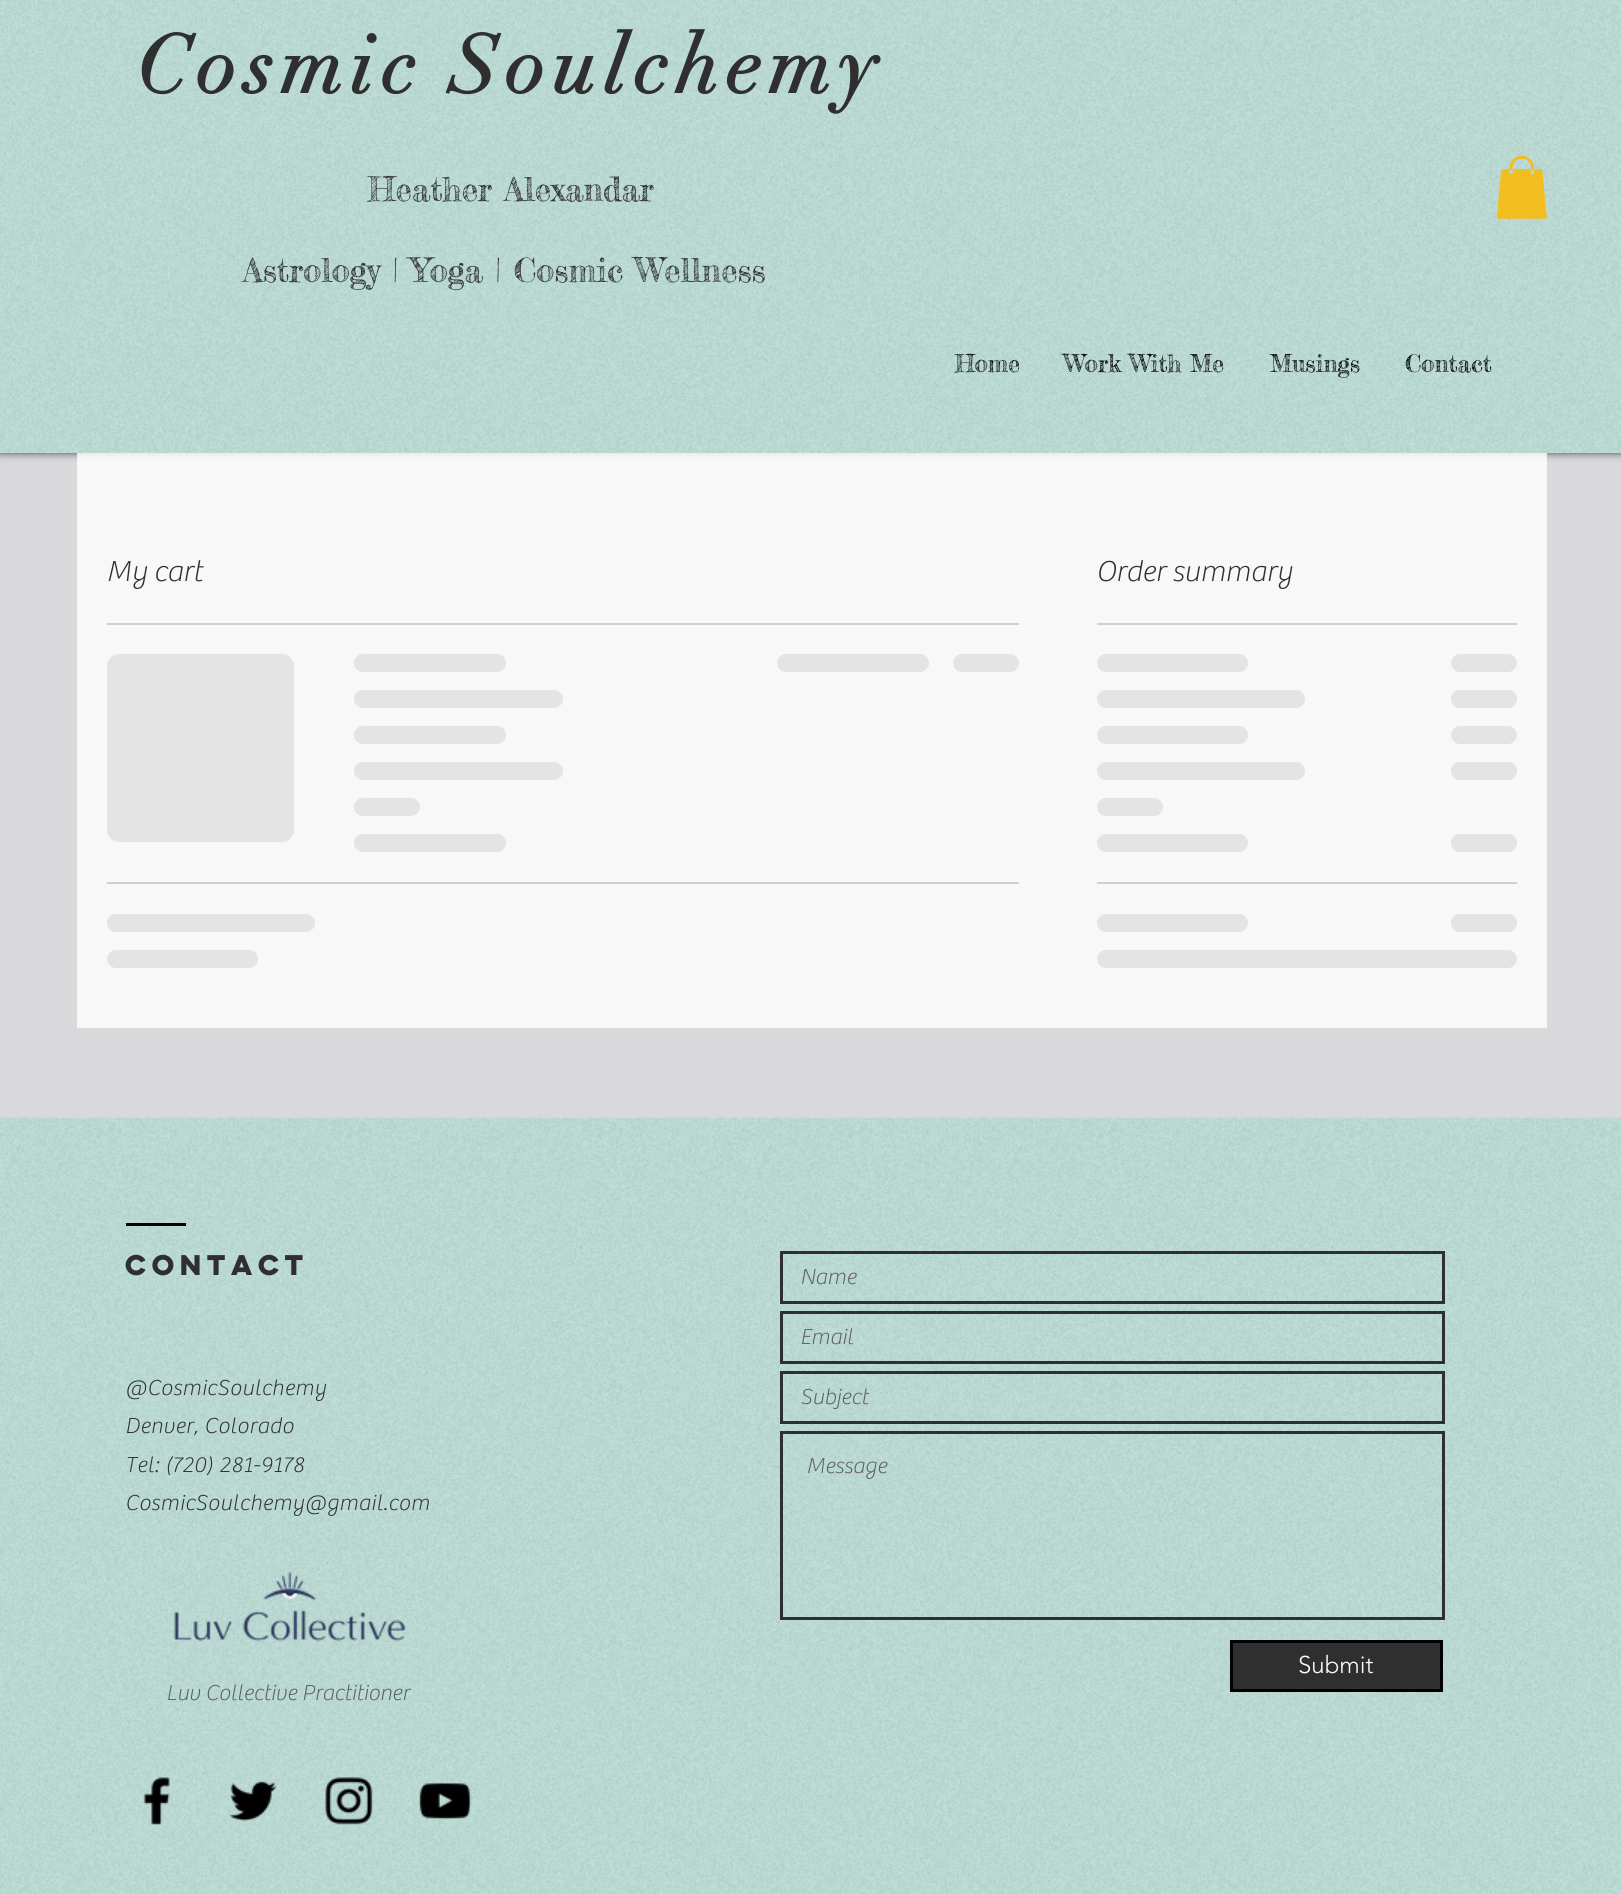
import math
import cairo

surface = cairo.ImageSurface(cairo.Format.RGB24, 1621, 1894)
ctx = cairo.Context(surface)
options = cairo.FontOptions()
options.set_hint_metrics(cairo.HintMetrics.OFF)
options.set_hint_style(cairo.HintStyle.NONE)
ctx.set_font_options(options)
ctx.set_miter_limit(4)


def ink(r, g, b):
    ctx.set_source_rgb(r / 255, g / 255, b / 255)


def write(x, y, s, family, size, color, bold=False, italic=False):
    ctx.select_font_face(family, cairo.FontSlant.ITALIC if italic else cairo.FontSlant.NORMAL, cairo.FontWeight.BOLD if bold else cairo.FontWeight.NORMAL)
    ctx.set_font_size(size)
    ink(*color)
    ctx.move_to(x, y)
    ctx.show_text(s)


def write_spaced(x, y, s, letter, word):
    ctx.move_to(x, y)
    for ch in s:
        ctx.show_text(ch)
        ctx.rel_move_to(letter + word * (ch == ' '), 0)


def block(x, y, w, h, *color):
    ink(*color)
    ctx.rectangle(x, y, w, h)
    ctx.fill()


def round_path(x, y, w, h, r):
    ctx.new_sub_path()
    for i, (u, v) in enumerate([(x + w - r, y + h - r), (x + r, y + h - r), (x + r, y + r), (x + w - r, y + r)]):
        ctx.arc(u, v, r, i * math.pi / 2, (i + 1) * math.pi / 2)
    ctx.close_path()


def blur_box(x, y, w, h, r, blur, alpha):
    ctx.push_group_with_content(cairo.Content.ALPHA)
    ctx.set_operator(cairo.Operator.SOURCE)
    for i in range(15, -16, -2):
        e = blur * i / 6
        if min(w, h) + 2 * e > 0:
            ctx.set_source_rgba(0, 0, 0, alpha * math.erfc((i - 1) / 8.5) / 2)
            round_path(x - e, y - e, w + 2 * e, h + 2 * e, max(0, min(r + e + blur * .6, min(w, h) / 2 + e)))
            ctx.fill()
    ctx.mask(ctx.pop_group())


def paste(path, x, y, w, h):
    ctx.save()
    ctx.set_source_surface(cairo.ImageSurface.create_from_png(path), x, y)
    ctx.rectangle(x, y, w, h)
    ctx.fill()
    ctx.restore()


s1 = dict(family="Fredericka the Great", size=33, color=(47, 47, 48))
s2 = dict(family="Fredericka the Great", size=24, color=(0, 0, 0))
s3 = dict(family="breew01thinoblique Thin", size=30, color=(47, 47, 48))
s4 = dict(family="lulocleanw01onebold", size=25.5, color=(47, 47, 48), bold=True)
s5 = dict(family="breew01thinoblique Thin", size=22.5, color=(95, 94, 97))
s6 = dict(family="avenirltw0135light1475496 Light", size=24, color=(255, 255, 255))

ink(217, 216, 218)
ctx.paint()
ink(0, 0, 0)
blur_box(0, 0, 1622, 453, 0, 4, 0.7)
block(0, 0, 1621, 453, 190, 222, 215)
paste("pic1.png", 0, 0, 1621, 453)
ctx.select_font_face("didot", cairo.FontSlant.NORMAL, cairo.FontWeight.BOLD)
ctx.set_font_size(81)
ink(47, 47, 48)
write_spaced(137, 93, "Cosmic Soulchemy", 8.1, 0)
write(368, 201, "Heather Alexandar", **s1)
write(243, 282, "Astrology | Yoga | Cosmic Wellness", **s1)
paste("pic2.png", 1496, 156, 51, 63)
write(955, 372, "Home", **s2)
write(1064, 372, "Work With Me", **s2)
write(1270, 372, "Musings", **s2)
write(1405, 372, "Contact", **s2)
ctx.set_source_rgba(1, 1, 1, 0.82)
ctx.rectangle(77, 453, 1470, 575)
ctx.fill()
block(107, 623, 912, 2, 208, 208, 208)
write(106, 581, "My cart", **s3)
gradient = cairo.LinearGradient(107, 748, 857, 748)
gradient.add_color_stop_rgba(0.25, 0.894, 0.894, 0.894, 1)
gradient.add_color_stop_rgba(0.37, 0.816, 0.816, 0.816, 1)
gradient.add_color_stop_rgba(0.63, 0.894, 0.894, 0.894, 1)
ctx.set_source(gradient)
round_path(107, 654, 187, 188, 12)
ctx.fill()
gradient = cairo.LinearGradient(354, 663, 960, 663)
gradient.add_color_stop_rgba(0.25, 0.894, 0.894, 0.894, 1)
gradient.add_color_stop_rgba(0.37, 0.816, 0.816, 0.816, 1)
gradient.add_color_stop_rgba(0.63, 0.894, 0.894, 0.894, 1)
ctx.set_source(gradient)
round_path(354, 654, 152, 18, 9)
ctx.fill()
gradient = cairo.LinearGradient(354, 699, 1188, 699)
gradient.add_color_stop_rgba(0.25, 0.894, 0.894, 0.894, 1)
gradient.add_color_stop_rgba(0.37, 0.816, 0.816, 0.816, 1)
gradient.add_color_stop_rgba(0.63, 0.894, 0.894, 0.894, 1)
ctx.set_source(gradient)
round_path(354, 690, 209, 18, 9)
ctx.fill()
gradient = cairo.LinearGradient(354, 735, 960, 735)
gradient.add_color_stop_rgba(0.25, 0.894, 0.894, 0.894, 1)
gradient.add_color_stop_rgba(0.37, 0.816, 0.816, 0.816, 1)
gradient.add_color_stop_rgba(0.63, 0.894, 0.894, 0.894, 1)
ctx.set_source(gradient)
round_path(354, 726, 152, 18, 9)
ctx.fill()
gradient = cairo.LinearGradient(354, 771, 1188, 771)
gradient.add_color_stop_rgba(0.25, 0.894, 0.894, 0.894, 1)
gradient.add_color_stop_rgba(0.37, 0.816, 0.816, 0.816, 1)
gradient.add_color_stop_rgba(0.63, 0.894, 0.894, 0.894, 1)
ctx.set_source(gradient)
round_path(354, 762, 209, 18, 9)
ctx.fill()
gradient = cairo.LinearGradient(354, 807, 618, 807)
gradient.add_color_stop_rgba(0.25, 0.894, 0.894, 0.894, 1)
gradient.add_color_stop_rgba(0.37, 0.816, 0.816, 0.816, 1)
gradient.add_color_stop_rgba(0.63, 0.894, 0.894, 0.894, 1)
ctx.set_source(gradient)
round_path(354, 798, 66, 18, 9)
ctx.fill()
gradient = cairo.LinearGradient(354, 843, 960, 843)
gradient.add_color_stop_rgba(0.25, 0.894, 0.894, 0.894, 1)
gradient.add_color_stop_rgba(0.37, 0.816, 0.816, 0.816, 1)
gradient.add_color_stop_rgba(0.63, 0.894, 0.894, 0.894, 1)
ctx.set_source(gradient)
round_path(354, 834, 152, 18, 9)
ctx.fill()
gradient = cairo.LinearGradient(777, 663, 1383, 663)
gradient.add_color_stop_rgba(0.25, 0.894, 0.894, 0.894, 1)
gradient.add_color_stop_rgba(0.37, 0.816, 0.816, 0.816, 1)
gradient.add_color_stop_rgba(0.63, 0.894, 0.894, 0.894, 1)
ctx.set_source(gradient)
round_path(777, 654, 152, 18, 9)
ctx.fill()
gradient = cairo.LinearGradient(953, 663, 1217, 663)
gradient.add_color_stop_rgba(0.25, 0.894, 0.894, 0.894, 1)
gradient.add_color_stop_rgba(0.37, 0.816, 0.816, 0.816, 1)
gradient.add_color_stop_rgba(0.63, 0.894, 0.894, 0.894, 1)
ctx.set_source(gradient)
round_path(953, 654, 66, 18, 9)
ctx.fill()
block(107, 882, 912, 2, 208, 208, 208)
gradient = cairo.LinearGradient(107, 923, 941, 923)
gradient.add_color_stop_rgba(0.25, 0.894, 0.894, 0.894, 1)
gradient.add_color_stop_rgba(0.37, 0.816, 0.816, 0.816, 1)
gradient.add_color_stop_rgba(0.63, 0.894, 0.894, 0.894, 1)
ctx.set_source(gradient)
round_path(107, 914, 208, 18, 9)
ctx.fill()
gradient = cairo.LinearGradient(107, 959, 713, 959)
gradient.add_color_stop_rgba(0.25, 0.894, 0.894, 0.894, 1)
gradient.add_color_stop_rgba(0.37, 0.816, 0.816, 0.816, 1)
gradient.add_color_stop_rgba(0.63, 0.894, 0.894, 0.894, 1)
ctx.set_source(gradient)
round_path(107, 950, 151, 18, 9)
ctx.fill()
block(1097, 623, 420, 2, 208, 208, 208)
write(1096, 581, "Order summary", **s3)
gradient = cairo.LinearGradient(1097, 663, 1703, 663)
gradient.add_color_stop_rgba(0.25, 0.894, 0.894, 0.894, 1)
gradient.add_color_stop_rgba(0.37, 0.816, 0.816, 0.816, 1)
gradient.add_color_stop_rgba(0.63, 0.894, 0.894, 0.894, 1)
ctx.set_source(gradient)
round_path(1097, 654, 151, 18, 9)
ctx.fill()
gradient = cairo.LinearGradient(1451, 663, 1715, 663)
gradient.add_color_stop_rgba(0.25, 0.894, 0.894, 0.894, 1)
gradient.add_color_stop_rgba(0.37, 0.816, 0.816, 0.816, 1)
gradient.add_color_stop_rgba(0.63, 0.894, 0.894, 0.894, 1)
ctx.set_source(gradient)
round_path(1451, 654, 66, 18, 9)
ctx.fill()
gradient = cairo.LinearGradient(1097, 699, 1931, 699)
gradient.add_color_stop_rgba(0.25, 0.894, 0.894, 0.894, 1)
gradient.add_color_stop_rgba(0.37, 0.816, 0.816, 0.816, 1)
gradient.add_color_stop_rgba(0.63, 0.894, 0.894, 0.894, 1)
ctx.set_source(gradient)
round_path(1097, 690, 208, 18, 9)
ctx.fill()
gradient = cairo.LinearGradient(1451, 699, 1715, 699)
gradient.add_color_stop_rgba(0.25, 0.894, 0.894, 0.894, 1)
gradient.add_color_stop_rgba(0.37, 0.816, 0.816, 0.816, 1)
gradient.add_color_stop_rgba(0.63, 0.894, 0.894, 0.894, 1)
ctx.set_source(gradient)
round_path(1451, 690, 66, 18, 9)
ctx.fill()
gradient = cairo.LinearGradient(1097, 735, 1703, 735)
gradient.add_color_stop_rgba(0.25, 0.894, 0.894, 0.894, 1)
gradient.add_color_stop_rgba(0.37, 0.816, 0.816, 0.816, 1)
gradient.add_color_stop_rgba(0.63, 0.894, 0.894, 0.894, 1)
ctx.set_source(gradient)
round_path(1097, 726, 151, 18, 9)
ctx.fill()
gradient = cairo.LinearGradient(1451, 735, 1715, 735)
gradient.add_color_stop_rgba(0.25, 0.894, 0.894, 0.894, 1)
gradient.add_color_stop_rgba(0.37, 0.816, 0.816, 0.816, 1)
gradient.add_color_stop_rgba(0.63, 0.894, 0.894, 0.894, 1)
ctx.set_source(gradient)
round_path(1451, 726, 66, 18, 9)
ctx.fill()
gradient = cairo.LinearGradient(1097, 771, 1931, 771)
gradient.add_color_stop_rgba(0.25, 0.894, 0.894, 0.894, 1)
gradient.add_color_stop_rgba(0.37, 0.816, 0.816, 0.816, 1)
gradient.add_color_stop_rgba(0.63, 0.894, 0.894, 0.894, 1)
ctx.set_source(gradient)
round_path(1097, 762, 208, 18, 9)
ctx.fill()
gradient = cairo.LinearGradient(1451, 771, 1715, 771)
gradient.add_color_stop_rgba(0.25, 0.894, 0.894, 0.894, 1)
gradient.add_color_stop_rgba(0.37, 0.816, 0.816, 0.816, 1)
gradient.add_color_stop_rgba(0.63, 0.894, 0.894, 0.894, 1)
ctx.set_source(gradient)
round_path(1451, 762, 66, 18, 9)
ctx.fill()
gradient = cairo.LinearGradient(1097, 807, 1361, 807)
gradient.add_color_stop_rgba(0.25, 0.894, 0.894, 0.894, 1)
gradient.add_color_stop_rgba(0.37, 0.816, 0.816, 0.816, 1)
gradient.add_color_stop_rgba(0.63, 0.894, 0.894, 0.894, 1)
ctx.set_source(gradient)
round_path(1097, 798, 66, 18, 9)
ctx.fill()
gradient = cairo.LinearGradient(1097, 843, 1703, 843)
gradient.add_color_stop_rgba(0.25, 0.894, 0.894, 0.894, 1)
gradient.add_color_stop_rgba(0.37, 0.816, 0.816, 0.816, 1)
gradient.add_color_stop_rgba(0.63, 0.894, 0.894, 0.894, 1)
ctx.set_source(gradient)
round_path(1097, 834, 151, 18, 9)
ctx.fill()
gradient = cairo.LinearGradient(1451, 843, 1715, 843)
gradient.add_color_stop_rgba(0.25, 0.894, 0.894, 0.894, 1)
gradient.add_color_stop_rgba(0.37, 0.816, 0.816, 0.816, 1)
gradient.add_color_stop_rgba(0.63, 0.894, 0.894, 0.894, 1)
ctx.set_source(gradient)
round_path(1451, 834, 66, 18, 9)
ctx.fill()
block(1097, 882, 420, 2, 208, 208, 208)
gradient = cairo.LinearGradient(1097, 923, 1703, 923)
gradient.add_color_stop_rgba(0.25, 0.894, 0.894, 0.894, 1)
gradient.add_color_stop_rgba(0.37, 0.816, 0.816, 0.816, 1)
gradient.add_color_stop_rgba(0.63, 0.894, 0.894, 0.894, 1)
ctx.set_source(gradient)
round_path(1097, 914, 151, 18, 9)
ctx.fill()
gradient = cairo.LinearGradient(1451, 923, 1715, 923)
gradient.add_color_stop_rgba(0.25, 0.894, 0.894, 0.894, 1)
gradient.add_color_stop_rgba(0.37, 0.816, 0.816, 0.816, 1)
gradient.add_color_stop_rgba(0.63, 0.894, 0.894, 0.894, 1)
ctx.set_source(gradient)
round_path(1451, 914, 66, 18, 9)
ctx.fill()
gradient = cairo.LinearGradient(1097, 959, 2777, 959)
gradient.add_color_stop_rgba(0.25, 0.894, 0.894, 0.894, 1)
gradient.add_color_stop_rgba(0.37, 0.816, 0.816, 0.816, 1)
gradient.add_color_stop_rgba(0.63, 0.894, 0.894, 0.894, 1)
ctx.set_source(gradient)
round_path(1097, 950, 420, 18, 9)
ctx.fill()
block(0, 1118, 1621, 776, 190, 222, 215)
paste("pic3.png", 0, 1117, 1621, 777)
block(126, 1223, 60, 3, 0, 0, 0)
write(125, 1275, "Contact", **s4)
ctx.select_font_face("breew01thinoblique Thin")
ctx.set_font_size(22.5)
write_spaced(125, 1395, "@CosmicSoulchemy", 0.45, 0)
write_spaced(125, 1433, "Denver, Colorado", 0.45, 0)
write_spaced(125, 1472, "Tel: (720) 281-9178", 0.45, 0)
write_spaced(125, 1510, "CosmicSoulchemy@gmail.com", 0.45, 0)
ctx.rectangle(781.5, 1252.5, 662, 50)
ctx.set_line_width(3)
ctx.stroke()
write(800, 1284, "Name", **s5)
ctx.rectangle(781.5, 1312.5, 662, 50)
ink(47, 47, 48)
ctx.stroke()
write(800, 1344, "Email", **s5)
ctx.rectangle(781.5, 1372.5, 662, 50)
ink(47, 47, 48)
ctx.stroke()
write(800, 1404, "Subject", **s5)
ctx.rectangle(781.5, 1432.5, 662, 186)
ink(47, 47, 48)
ctx.stroke()
write(806, 1473, "Message", **s5)
ink(47, 47, 48)
ctx.rectangle(1231.5, 1641.5, 210, 49)
ctx.fill_preserve()
ink(0, 0, 0)
ctx.stroke()
write(1298, 1673, "Submit", **s6)
paste("pic4.png", 173, 1571, 233, 71)
write(166, 1700, "Luv Collective Practitioner", **s5)
paste("pic5.png", 143, 1777, 27, 48)
paste("pic6.png", 229, 1781, 48, 41)
paste("pic7.png", 325, 1777, 48, 48)
paste("pic8.png", 419, 1782, 53, 38)
surface.write_to_png("screenshot.png")
